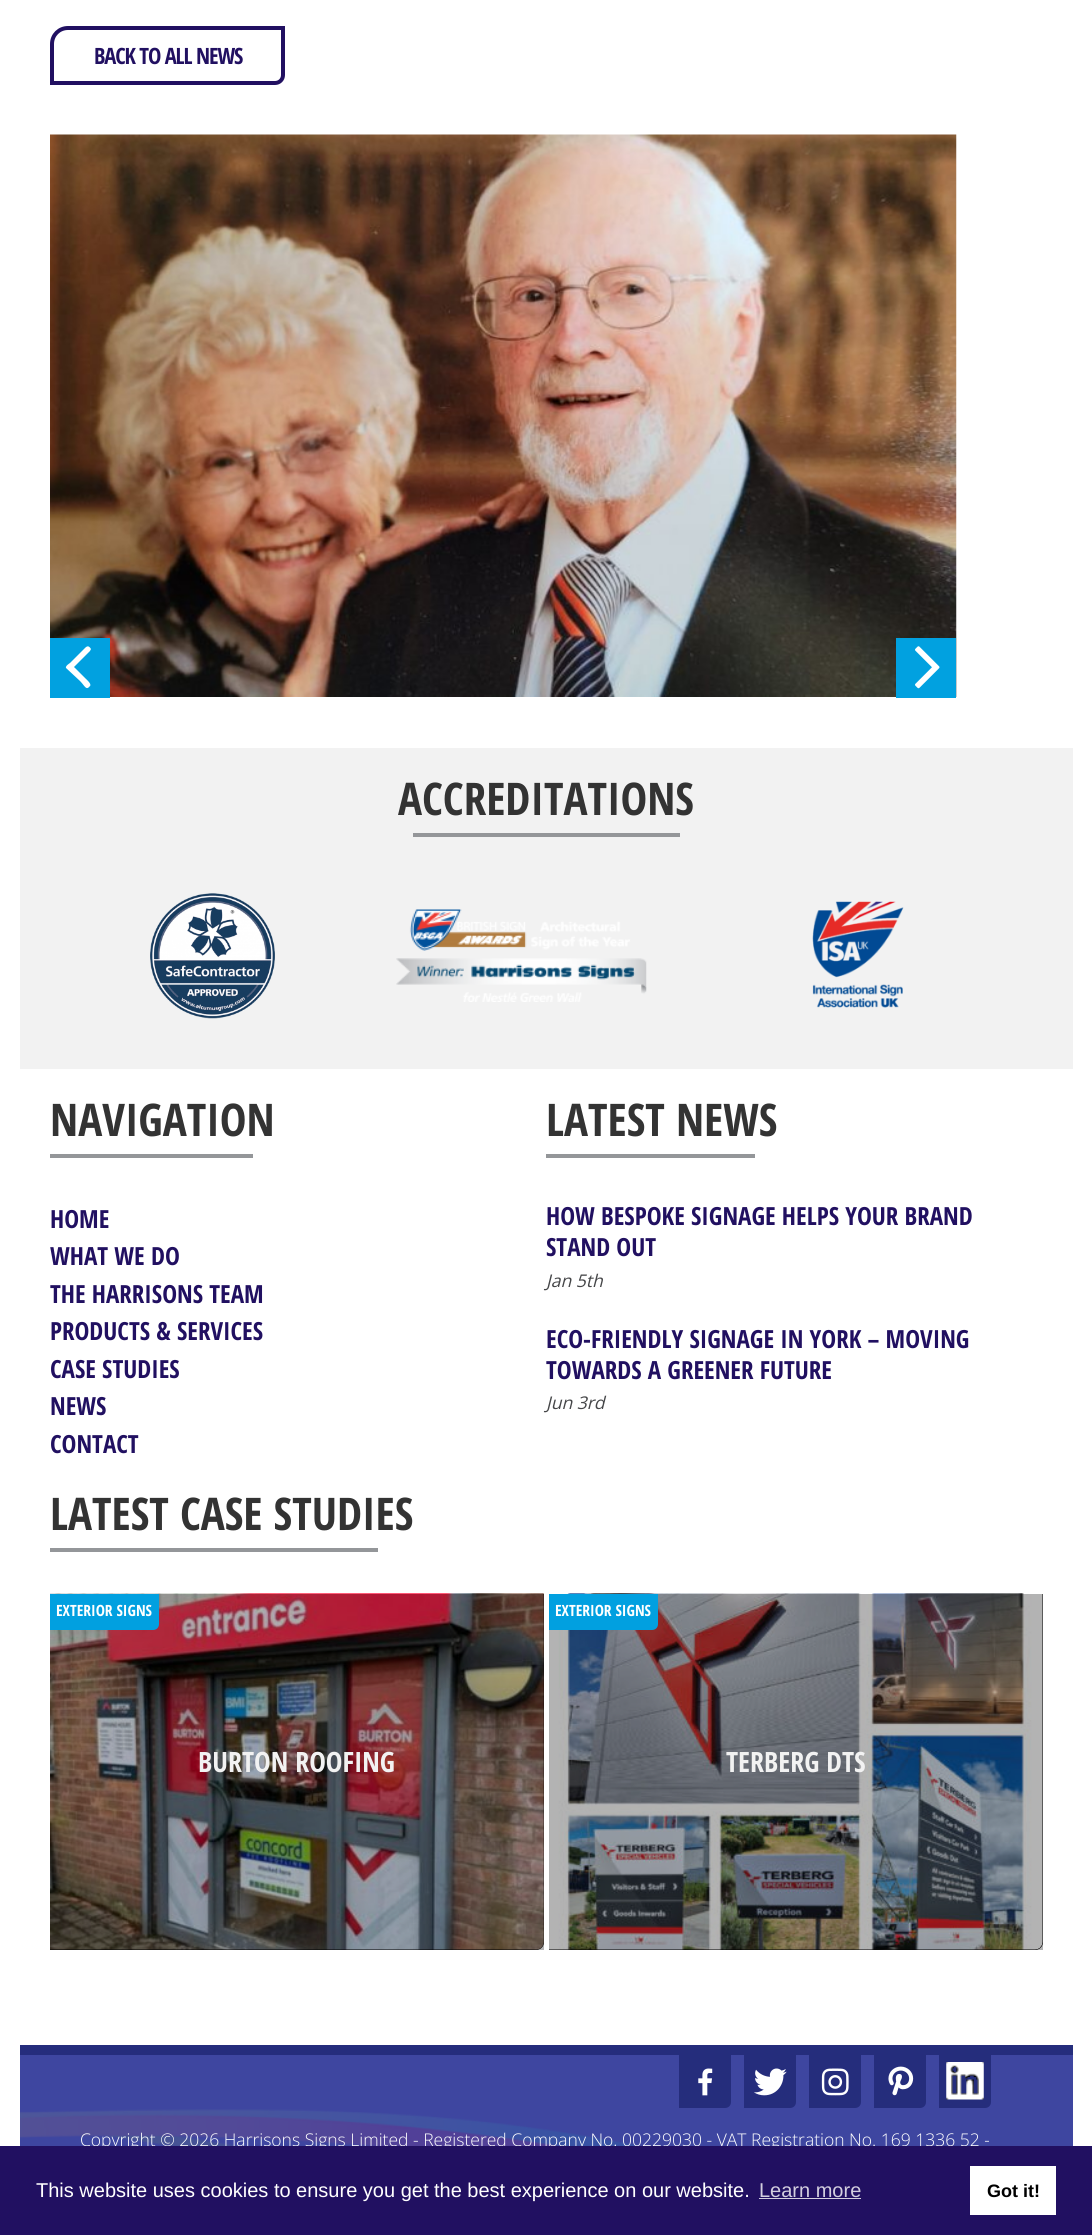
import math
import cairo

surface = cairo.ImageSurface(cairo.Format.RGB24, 1092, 2235)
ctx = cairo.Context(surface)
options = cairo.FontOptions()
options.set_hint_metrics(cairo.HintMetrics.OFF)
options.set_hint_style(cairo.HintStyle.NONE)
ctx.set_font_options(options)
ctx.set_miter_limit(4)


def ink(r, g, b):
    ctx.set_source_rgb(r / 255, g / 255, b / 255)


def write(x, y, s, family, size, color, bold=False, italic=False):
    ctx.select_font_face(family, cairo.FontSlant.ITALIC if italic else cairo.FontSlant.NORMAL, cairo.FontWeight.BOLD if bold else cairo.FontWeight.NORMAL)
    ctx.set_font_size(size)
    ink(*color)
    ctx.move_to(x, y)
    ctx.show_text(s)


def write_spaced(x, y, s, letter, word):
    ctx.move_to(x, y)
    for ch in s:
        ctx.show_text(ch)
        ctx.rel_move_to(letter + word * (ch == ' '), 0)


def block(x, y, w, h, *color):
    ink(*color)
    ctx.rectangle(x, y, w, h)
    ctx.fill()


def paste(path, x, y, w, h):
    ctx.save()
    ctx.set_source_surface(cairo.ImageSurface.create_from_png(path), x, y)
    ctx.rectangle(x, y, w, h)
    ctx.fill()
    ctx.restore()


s1 = dict(family="Open Sans Condensed", size=45, color=(51, 51, 51), bold=True)
s2 = dict(family="Open Sans Condensed", size=25, color=(33, 16, 97), bold=True)
s3 = dict(family="Open Sans", size=17.5, color=(69, 70, 72), italic=True)
s4 = dict(family="Open Sans Condensed", size=15.5, color=(255, 255, 255), bold=True)
s5 = dict(family="Open Sans Condensed", size=28, color=(242, 242, 242), bold=True)
s6 = dict(family="Open Sans Light", size=17.5, color=(255, 255, 255))
s7 = dict(family="Liberation Sans", size=20, color=(255, 255, 255))
s8 = dict(family="Liberation Sans", size=20, color=(211, 207, 223))
s9 = dict(family="Liberation Sans", size=18, color=(0, 0, 0), bold=True)

ink(255, 255, 255)
ctx.paint()
block(1035, 1942, 8, 8, 179, 179, 179)
block(536, 1942, 8, 8, 179, 179, 179)
ctx.new_path()
ctx.move_to(68, 28)
ctx.line_to(283, 28)
ctx.line_to(283, 75)
ctx.curve_to(283, 79.5, 279.5, 83, 275, 83)
ctx.line_to(52, 83)
ctx.line_to(52, 44)
ctx.curve_to(52, 35, 59, 28, 68, 28)
ctx.close_path()
ink(33, 16, 97)
ctx.set_line_width(4)
ctx.stroke()
ctx.select_font_face("Open Sans Condensed", cairo.FontSlant.NORMAL, cairo.FontWeight.BOLD)
ctx.set_font_size(22.5)
write_spaced(94, 64, "BACK TO ALL NEWS", -1.1, 0)
paste("pic1.png", 50, 134, 907, 563)
block(50, 638, 60, 60, 1, 161, 224)
ink(255, 255, 255)
ctx.new_path()
ctx.move_to(90, 651)
ctx.line_to(74, 667)
ctx.line_to(85, 678)
ctx.curve_to(86, 679, 92, 684, 90, 686)
ctx.curve_to(86, 691, 85, 686, 80, 681)
ctx.line_to(66, 668)
ctx.curve_to(65, 666, 70, 663, 70, 663)
ctx.line_to(83, 650)
ctx.curve_to(86, 647, 88, 644, 91, 649)
ctx.close_path()
ctx.fill()
block(896, 638, 60, 60, 1, 161, 224)
paste("pic2.png", 915, 646, 25, 43)
block(20, 748, 1053, 321, 242, 242, 242)
write(398, 815, "ACCREDITATIONS", **s1)
block(413, 833, 267, 4, 148, 150, 153)
paste("pic3.png", 150, 893, 125, 126)
paste("pic4.png", 396, 909, 251, 93)
paste("pic5.png", 812, 901, 92, 107)
write(50, 1136, "NAVIGATION", **s1)
block(50, 1154, 203, 4, 148, 150, 153)
write(50, 1228, "HOME", **s2)
write(50, 1265, "WHAT WE DO", **s2)
write(50, 1303, "THE HARRISONS TEAM", **s2)
write(50, 1340, "PRODUCTS & SERVICES", **s2)
write(50, 1378, "CASE STUDIES", **s2)
write(50, 1415, "NEWS", **s2)
write(50, 1453, "CONTACT", **s2)
write(546, 1136, "LATEST NEWS", **s1)
block(546, 1154, 209, 4, 148, 150, 153)
write(546, 1225, "HOW BESPOKE SIGNAGE HELPS YOUR BRAND", **s2)
write(546, 1256, "STAND OUT", **s2)
write(546, 1287, "Jan 5th", **s3)
write(546, 1348, "ECO-FRIENDLY SIGNAGE IN YORK – MOVING", **s2)
write(546, 1379, "TOWARDS A GREENER FUTURE", **s2)
write(546, 1409, "Jun 3rd", **s3)
write(50, 1530, "LATEST CASE STUDIES", **s1)
block(50, 1548, 328, 4, 148, 150, 153)
ink(0, 0, 0)
ctx.new_path()
ctx.move_to(50, 1594)
ctx.line_to(544, 1594)
ctx.line_to(544, 1942)
ctx.curve_to(544, 1946.5, 540.5, 1950, 536, 1950)
ctx.line_to(50, 1950)
ctx.close_path()
ctx.fill()
paste("pic6.png", 50, 1593, 494, 357)
ink(1, 160, 224)
ctx.new_path()
ctx.move_to(50, 1594)
ctx.line_to(159, 1594)
ctx.line_to(159, 1624)
ctx.curve_to(159, 1627.5, 156.5, 1630, 153, 1630)
ctx.line_to(50, 1630)
ctx.close_path()
ctx.fill()
write(56, 1616, "EXTERIOR SIGNS", **s4)
write(198, 1772, "BURTON ROOFING", **s5)
ink(0, 0, 0)
ctx.new_path()
ctx.move_to(549, 1594)
ctx.line_to(1043, 1594)
ctx.line_to(1043, 1942)
ctx.curve_to(1043, 1946.5, 1039.5, 1950, 1035, 1950)
ctx.line_to(549, 1950)
ctx.close_path()
ctx.fill()
paste("pic7.png", 549, 1593, 494, 357)
ink(1, 160, 224)
ctx.new_path()
ctx.move_to(549, 1594)
ctx.line_to(658, 1594)
ctx.line_to(658, 1624)
ctx.curve_to(658, 1627.5, 655.5, 1630, 652, 1630)
ctx.line_to(549, 1630)
ctx.close_path()
ctx.fill()
write(555, 1616, "EXTERIOR SIGNS", **s4)
write(726, 1772, "TERBERG DTS", **s5)
block(20, 2055, 1053, 91, 62, 70, 160)
paste("pic8.png", 20, 2109, 619, 37)
block(20, 2045, 1053, 10, 37, 45, 124)
ctx.new_path()
ctx.move_to(679, 2055)
ctx.line_to(731, 2055)
ctx.line_to(731, 2102)
ctx.curve_to(731, 2105.5, 728.5, 2108, 725, 2108)
ctx.line_to(679, 2108)
ctx.close_path()
ctx.fill()
paste("pic9.png", 698, 2068, 15, 28)
ctx.new_path()
ctx.move_to(744, 2055)
ctx.line_to(796, 2055)
ctx.line_to(796, 2102)
ctx.curve_to(796, 2105.5, 793.5, 2108, 790, 2108)
ctx.line_to(744, 2108)
ctx.close_path()
ctx.fill()
paste("pic10.png", 754, 2068, 33, 28)
ctx.new_path()
ctx.move_to(809, 2055)
ctx.line_to(861, 2055)
ctx.line_to(861, 2102)
ctx.curve_to(861, 2105.5, 858.5, 2108, 855, 2108)
ctx.line_to(809, 2108)
ctx.close_path()
ctx.fill()
paste("pic11.png", 821, 2068, 28, 28)
ctx.new_path()
ctx.move_to(874, 2055)
ctx.line_to(926, 2055)
ctx.line_to(926, 2102)
ctx.curve_to(926, 2105.5, 923.5, 2108, 920, 2108)
ctx.line_to(874, 2108)
ctx.close_path()
ctx.fill()
paste("pic12.png", 888, 2066, 26, 30)
ctx.new_path()
ctx.move_to(939, 2055)
ctx.line_to(991, 2055)
ctx.line_to(991, 2102)
ctx.curve_to(991, 2105.5, 988.5, 2108, 985, 2108)
ctx.line_to(939, 2108)
ctx.close_path()
ctx.fill()
paste("pic13.png", 946, 2062, 38, 38)
write(80, 2146, "Copyright © 2026 Harrisons Signs Limited - Registered Company No. 00229030 - VAT Registration No. 169 1336 52 -", **s6)
block(0, 2146, 1092, 89, 33, 16, 97)
write(36, 2197, "This website uses cookies to ensure you get the best experience on our website.", **s7)
write(759, 2197, "Learn more", **s8)
block(759, 2198, 102, 1, 211, 207, 223)
block(970, 2166, 86, 49, 255, 255, 255)
write(987, 2197, "Got it!", **s9)
surface.write_to_png("screenshot.png")
